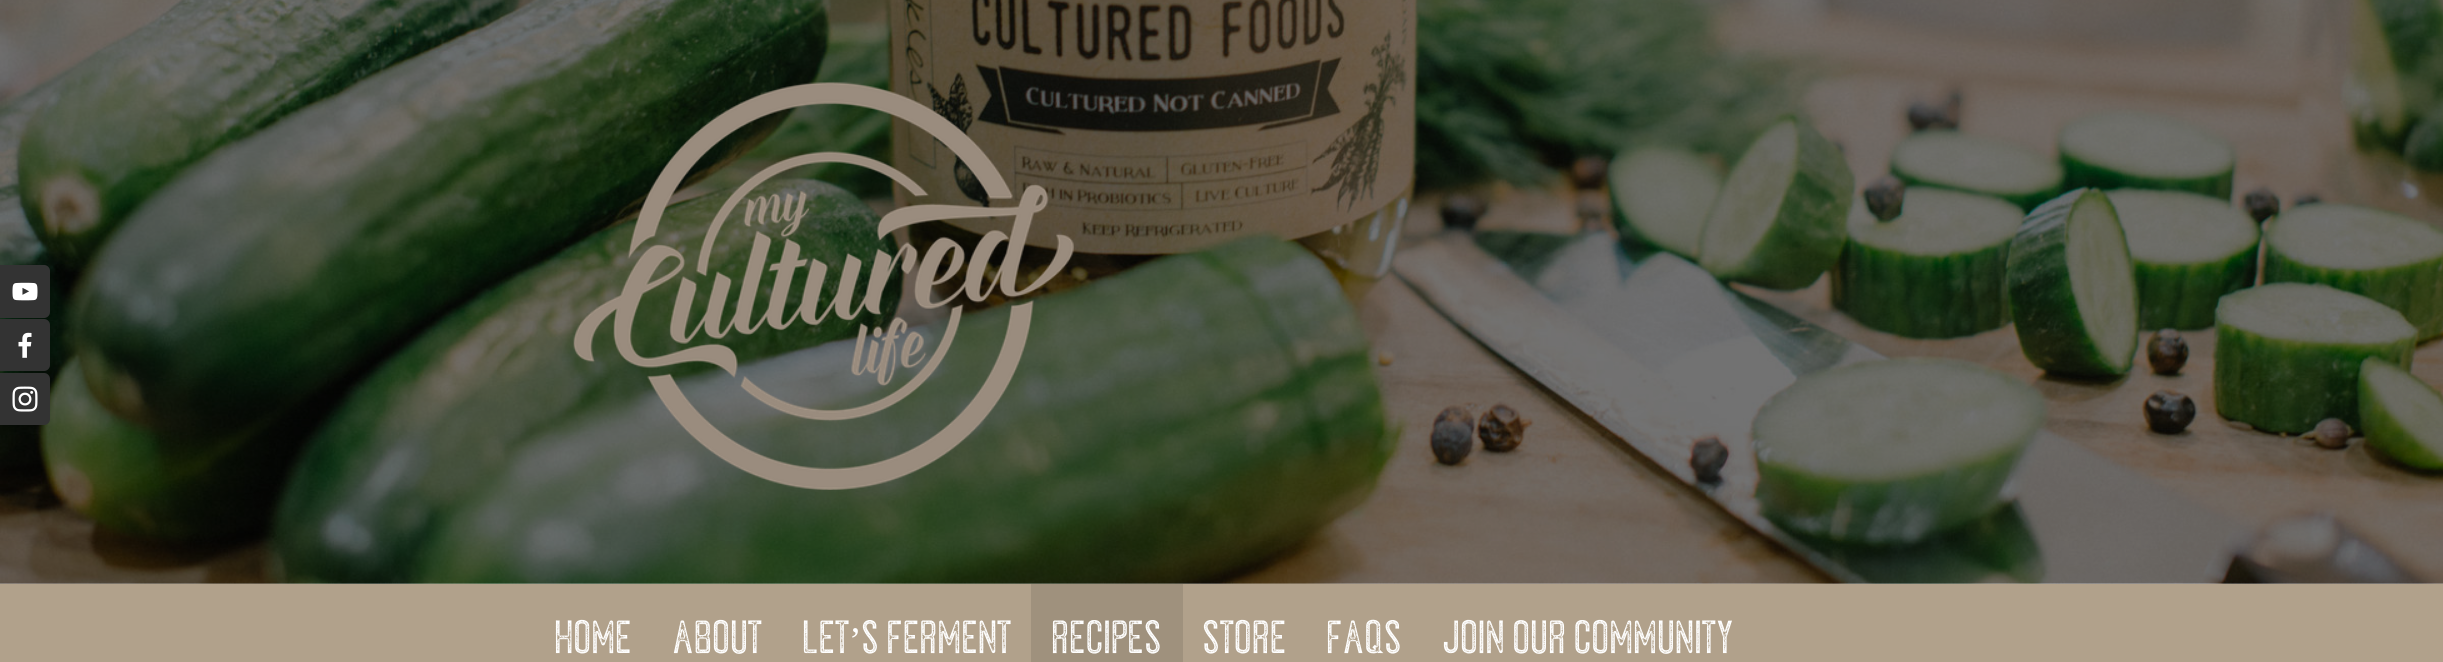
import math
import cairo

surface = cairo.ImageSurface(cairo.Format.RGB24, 2443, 662)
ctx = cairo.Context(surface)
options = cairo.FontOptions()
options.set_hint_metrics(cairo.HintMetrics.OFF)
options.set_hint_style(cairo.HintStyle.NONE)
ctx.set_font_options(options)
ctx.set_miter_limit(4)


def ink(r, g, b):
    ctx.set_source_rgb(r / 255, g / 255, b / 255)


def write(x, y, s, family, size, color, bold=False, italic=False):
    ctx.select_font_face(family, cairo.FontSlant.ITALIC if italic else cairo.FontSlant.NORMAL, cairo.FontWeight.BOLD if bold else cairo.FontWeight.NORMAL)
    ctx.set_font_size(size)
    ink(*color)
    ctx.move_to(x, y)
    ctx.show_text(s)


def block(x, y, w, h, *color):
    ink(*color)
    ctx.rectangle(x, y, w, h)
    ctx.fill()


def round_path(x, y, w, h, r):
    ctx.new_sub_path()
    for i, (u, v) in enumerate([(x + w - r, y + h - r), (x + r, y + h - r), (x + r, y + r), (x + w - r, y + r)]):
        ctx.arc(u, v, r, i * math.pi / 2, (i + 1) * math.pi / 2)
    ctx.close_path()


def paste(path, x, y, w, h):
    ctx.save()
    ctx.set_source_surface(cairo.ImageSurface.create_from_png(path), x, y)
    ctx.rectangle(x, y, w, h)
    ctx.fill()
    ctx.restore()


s1 = dict(family="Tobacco", size=37.5, color=(255, 255, 255))
s2 = dict(family="Liberation Serif", size=37.5, color=(255, 255, 255))

ink(255, 255, 255)
ctx.paint()
paste("pic4.png", 0, 0, 2443, 584)
ink(51, 51, 51)
round_path(-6, 265, 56, 53, 6)
ctx.fill()
paste("pic1.png", 12, 282, 26, 19)
round_path(-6, 319, 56, 52, 6)
ctx.fill()
paste("pic2.png", 18, 332, 14, 26)
round_path(-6, 373, 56, 52, 6)
ctx.fill()
paste("pic3.png", 12, 386, 26, 26)
paste("pic5.png", 573, 82, 501, 408)
block(0, 584, 2443, 78, 177, 161, 139)
write(554, 653, "Home", **s1)
write(672, 653, "About", **s1)
write(802, 653, "Let", **s1)
write(849, 653, "’", **s2)
write(861, 653, "s Ferment", **s1)
block(1031, 584, 152, 78, 159, 145, 125)
write(1051, 653, "Recipes", **s1)
write(1202, 653, "Store", **s1)
write(1326, 653, "FAQs", **s1)
write(1442, 653, "Join Our Community", **s1)
surface.write_to_png("screenshot.png")
